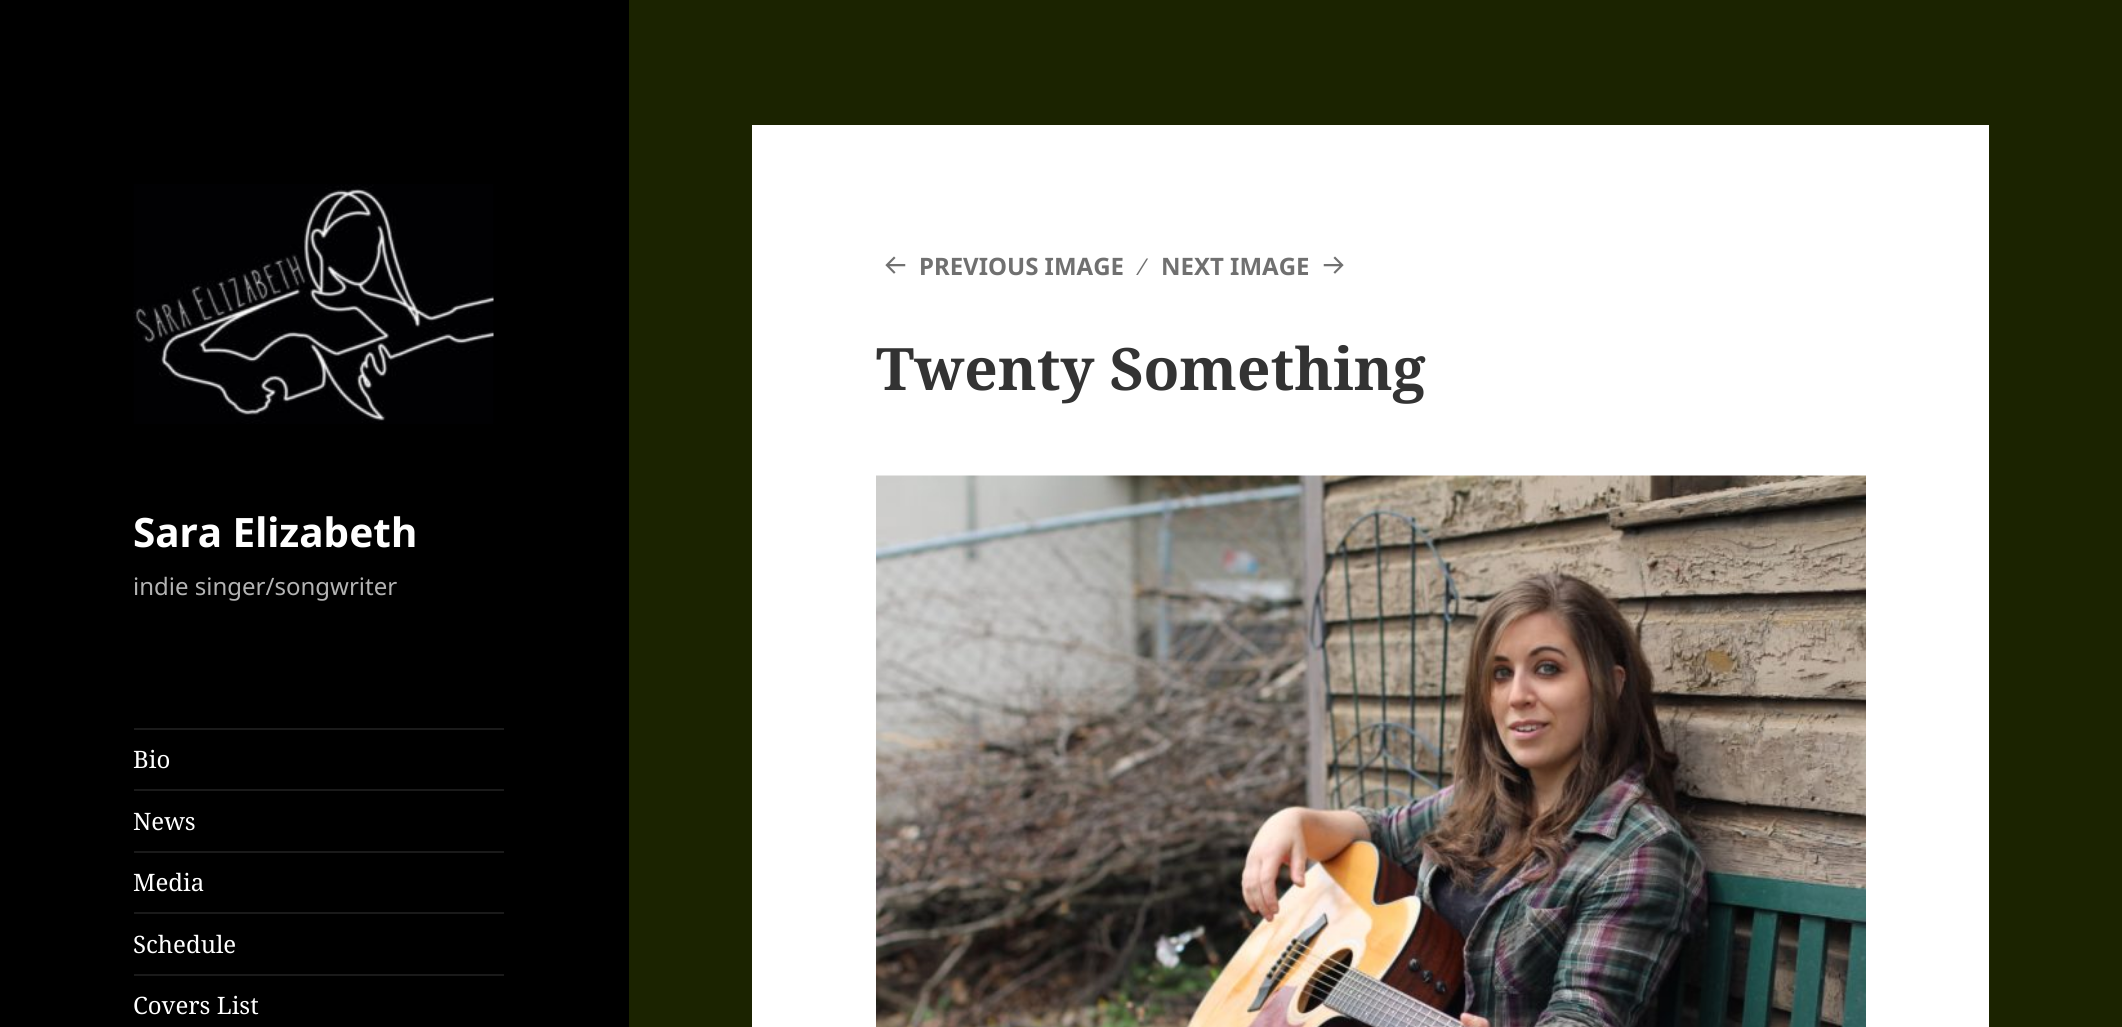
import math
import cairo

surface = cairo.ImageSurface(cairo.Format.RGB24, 2122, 1027)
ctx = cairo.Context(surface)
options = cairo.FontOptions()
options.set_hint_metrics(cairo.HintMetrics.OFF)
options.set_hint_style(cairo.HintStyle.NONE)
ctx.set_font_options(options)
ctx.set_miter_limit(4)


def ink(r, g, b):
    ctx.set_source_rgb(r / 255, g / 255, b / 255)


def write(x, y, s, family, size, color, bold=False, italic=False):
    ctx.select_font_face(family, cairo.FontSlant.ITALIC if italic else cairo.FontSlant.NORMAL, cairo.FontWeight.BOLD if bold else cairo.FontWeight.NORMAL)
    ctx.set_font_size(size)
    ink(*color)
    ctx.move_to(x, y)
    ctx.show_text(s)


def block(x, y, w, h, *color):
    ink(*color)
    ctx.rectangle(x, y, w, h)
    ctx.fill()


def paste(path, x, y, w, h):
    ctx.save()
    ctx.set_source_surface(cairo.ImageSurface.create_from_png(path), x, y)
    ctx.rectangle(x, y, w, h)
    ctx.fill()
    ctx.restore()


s1 = dict(family="Noto Sans", size=24, color=(112, 112, 112), bold=True)
s2 = dict(family="Liberation Sans", size=24, color=(112, 112, 112))
s3 = dict(family="Noto Serif", size=58.5, color=(51, 51, 51), bold=True)
s4 = dict(family="Noto Sans", size=40.5, color=(255, 255, 255), bold=True)
s5 = dict(family="Noto Sans", size=24, color=(179, 179, 179))
s6 = dict(family="Noto Serif", size=24, color=(255, 255, 255))

ink(27, 35, 0)
ctx.paint()
block(0, 0, 629, 1027, 0, 0, 0)
block(752, 125, 1237, 902, 255, 255, 255)
paste("pic1.png", 885, 256, 21, 18)
write(919, 275, "PREVIOUS IMAGE", **s1)
write(1141, 275, "∕", **s2)
write(1161, 275, "NEXT IMAGE", **s1)
paste("pic2.png", 1323, 256, 21, 18)
write(876, 390, "Twenty Something", **s3)
paste("pic3.png", 876, 475, 990, 552)
paste("pic4.png", 133, 184, 361, 240)
write(133, 547, "Sara Elizabeth", **s4)
write(133, 595, "indie singer/songwriter", **s5)
block(134, 728, 370, 2, 26, 26, 26)
write(133, 768, "Bio", **s6)
block(134, 789, 370, 2, 26, 26, 26)
write(133, 830, "News", **s6)
block(134, 851, 370, 2, 26, 26, 26)
write(133, 891, "Media", **s6)
block(134, 912, 370, 2, 26, 26, 26)
write(133, 953, "Schedule", **s6)
block(134, 974, 370, 2, 26, 26, 26)
write(133, 1014, "Covers List", **s6)
surface.write_to_png("screenshot.png")
